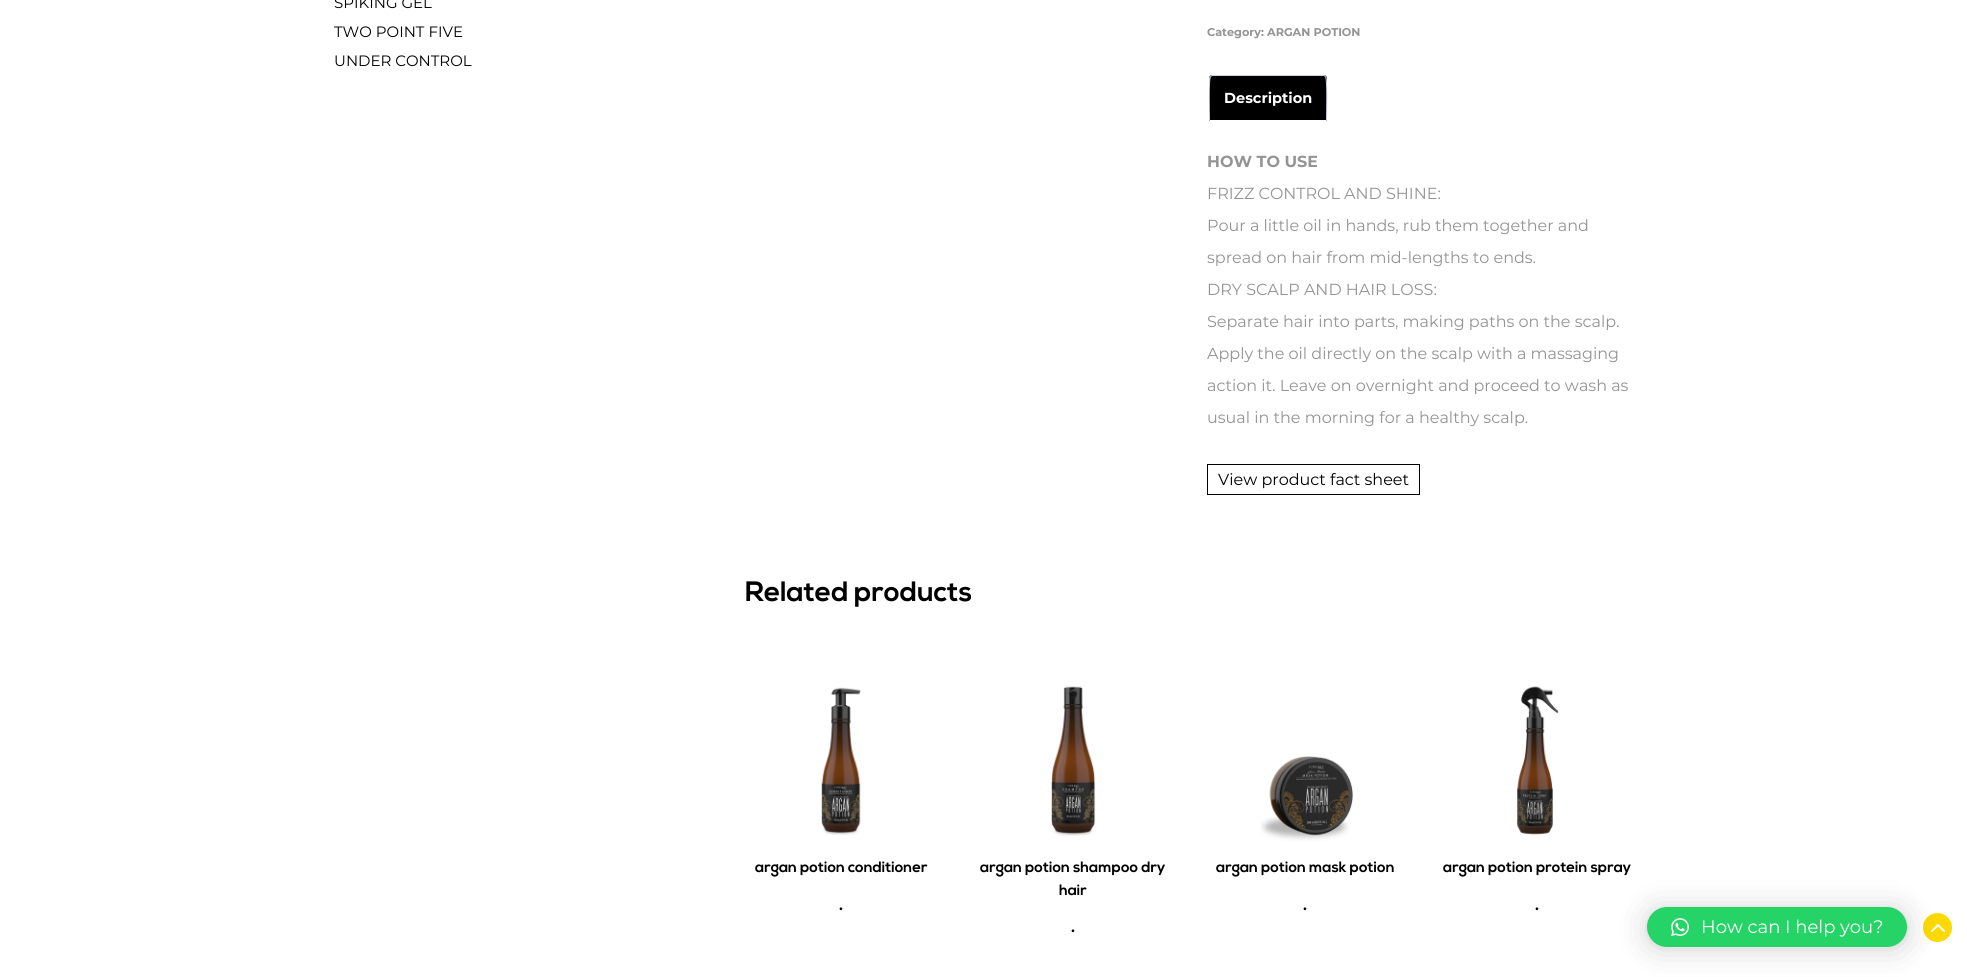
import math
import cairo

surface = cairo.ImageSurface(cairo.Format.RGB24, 1967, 977)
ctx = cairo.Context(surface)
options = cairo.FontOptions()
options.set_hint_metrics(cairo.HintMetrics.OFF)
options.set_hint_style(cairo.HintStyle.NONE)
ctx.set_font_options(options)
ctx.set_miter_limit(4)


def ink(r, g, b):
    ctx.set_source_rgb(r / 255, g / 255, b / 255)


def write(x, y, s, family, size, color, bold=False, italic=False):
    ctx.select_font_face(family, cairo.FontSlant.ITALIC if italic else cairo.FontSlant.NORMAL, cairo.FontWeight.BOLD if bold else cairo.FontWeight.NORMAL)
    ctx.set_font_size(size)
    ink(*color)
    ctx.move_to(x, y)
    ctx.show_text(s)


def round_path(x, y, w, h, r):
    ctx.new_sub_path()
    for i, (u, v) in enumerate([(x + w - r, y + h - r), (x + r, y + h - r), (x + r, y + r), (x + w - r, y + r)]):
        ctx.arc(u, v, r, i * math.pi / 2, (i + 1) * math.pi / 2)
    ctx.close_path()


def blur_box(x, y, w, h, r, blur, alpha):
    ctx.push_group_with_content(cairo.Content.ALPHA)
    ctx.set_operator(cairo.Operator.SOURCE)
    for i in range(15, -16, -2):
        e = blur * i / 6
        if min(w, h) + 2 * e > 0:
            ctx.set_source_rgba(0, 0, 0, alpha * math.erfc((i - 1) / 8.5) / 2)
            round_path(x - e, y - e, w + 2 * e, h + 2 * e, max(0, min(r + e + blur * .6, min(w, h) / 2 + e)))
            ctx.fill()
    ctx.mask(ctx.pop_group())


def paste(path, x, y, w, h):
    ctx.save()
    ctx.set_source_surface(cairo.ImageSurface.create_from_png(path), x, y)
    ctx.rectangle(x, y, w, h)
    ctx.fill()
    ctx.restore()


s1 = dict(family="Montserrat", size=15, color=(0, 0, 0))
s2 = dict(family="Montserrat", size=11.25, color=(148, 148, 148), bold=True)
s3 = dict(family="Montserrat", size=14.5, color=(255, 255, 255), bold=True)
s4 = dict(family="Montserrat", size=16, color=(148, 148, 148), bold=True)
s5 = dict(family="Montserrat", size=16, color=(148, 148, 148))
s6 = dict(family="Montserrat", size=16, color=(0, 0, 0))
s7 = dict(family="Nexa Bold", size=28, color=(0, 0, 0), bold=True)
s8 = dict(family="Nexa Bold", size=15, color=(0, 0, 0), bold=True)
s9 = dict(family="Montserrat SemiBold", size=16, color=(0, 0, 0))
s10 = dict(family="Montserrat", size=18, color=(255, 255, 255))

ink(255, 255, 255)
ctx.paint()
write(334, 8, "SPIKING GEL", **s1)
write(334, 37, "TWO POINT FIVE", **s1)
write(334, 66, "UNDER CONTROL", **s1)
write(1207, 36, "Category: ARGAN POTION", **s2)
ink(0, 0, 0)
ctx.new_path()
ctx.move_to(1212, 75)
ctx.line_to(1324, 75)
ctx.curve_to(1325.5, 75, 1327, 76.5, 1327, 78)
ctx.line_to(1327, 121)
ctx.line_to(1209, 121)
ctx.line_to(1209, 78)
ctx.curve_to(1209, 76.5, 1210.5, 75, 1212, 75)
ctx.close_path()
ctx.fill()
ink(203, 213, 224)
ctx.new_path()
ctx.move_to(1212, 75)
ctx.line_to(1210, 76)
ctx.line_to(1211, 77)
ctx.line_to(1212, 76)
ctx.line_to(1324, 76)
ctx.line_to(1325, 77)
ctx.line_to(1326, 76)
ctx.line_to(1324, 75)
ctx.close_path()
ctx.fill()
ctx.new_path()
ctx.move_to(1327, 121)
ctx.curve_to(1327, 116, 1328, 78, 1326, 76)
ctx.line_to(1325, 77)
ctx.curve_to(1327, 78, 1326, 115, 1326, 120)
ctx.close_path()
ctx.fill()
ink(255, 255, 255)
ctx.new_path()
ctx.move_to(1327, 121)
ctx.line_to(1326, 120)
ctx.line_to(1210, 120)
ctx.line_to(1209, 121)
ctx.close_path()
ctx.fill()
ink(203, 213, 224)
ctx.new_path()
ctx.move_to(1209, 121)
ctx.line_to(1210, 120)
ctx.curve_to(1210, 115, 1209, 78, 1211, 77)
ctx.line_to(1210, 76)
ctx.line_to(1209, 78)
ctx.close_path()
ctx.fill()
write(1224, 103, "Description", **s3)
write(1207, 167, "HOW TO USE", **s4)
write(1207, 199, "FRIZZ CONTROL AND SHINE:", **s5)
write(1207, 231, "Pour a little oil in hands, rub them together and", **s5)
write(1207, 263, "spread on hair from mid-lengths to ends.", **s5)
write(1207, 295, "DRY SCALP AND HAIR LOSS:", **s5)
write(1207, 327, "Separate hair into parts, making paths on the scalp.", **s5)
write(1207, 359, "Apply the oil directly on the scalp with a massaging", **s5)
write(1207, 391, "action it. Leave on overnight and proceed to wash as", **s5)
write(1207, 423, "usual in the morning for a healthy scalp.", **s5)
ctx.rectangle(1207.5, 464.5, 212, 30)
ink(0, 0, 0)
ctx.set_line_width(1)
ctx.stroke()
write(1218, 485, "View product fact sheet", **s6)
write(745, 601, "Related products", **s7)
paste("pic1.png", 821, 687, 40, 148)
write(755, 872, "argan potion conditioner", **s8)
write(839, 910, ".", **s9)
paste("pic2.png", 1051, 686, 45, 150)
write(980, 872, "argan potion shampoo dry", **s8)
write(1059, 895, "hair", **s8)
write(1071, 932, ".", **s9)
paste("pic3.png", 1260, 756, 93, 85)
write(1216, 872, "argan potion mask potion", **s8)
write(1303, 910, ".", **s9)
paste("pic4.png", 1517, 686, 42, 149)
write(1443, 872, "argan potion protein spray", **s8)
write(1535, 910, ".", **s9)
ink(253, 217, 0)
ctx.new_path()
ctx.arc(1937.5, 927.5, 14.5, 0, 2 * math.pi)
ctx.fill()
paste("pic6.png", 1931, 924, 14, 8)
ink(0, 0, 0)
blur_box(1647, 909, 260, 40, 20, 16, 0.16)
blur_box(1647, 908, 260, 40, 20, 3, 0.06)
ink(37, 211, 102)
round_path(1647, 907, 260, 40, 20)
ctx.fill()
paste("pic5.png", 1671, 918, 18, 19)
write(1701, 933, "How can I help you?", **s10)
surface.write_to_png("screenshot.png")
